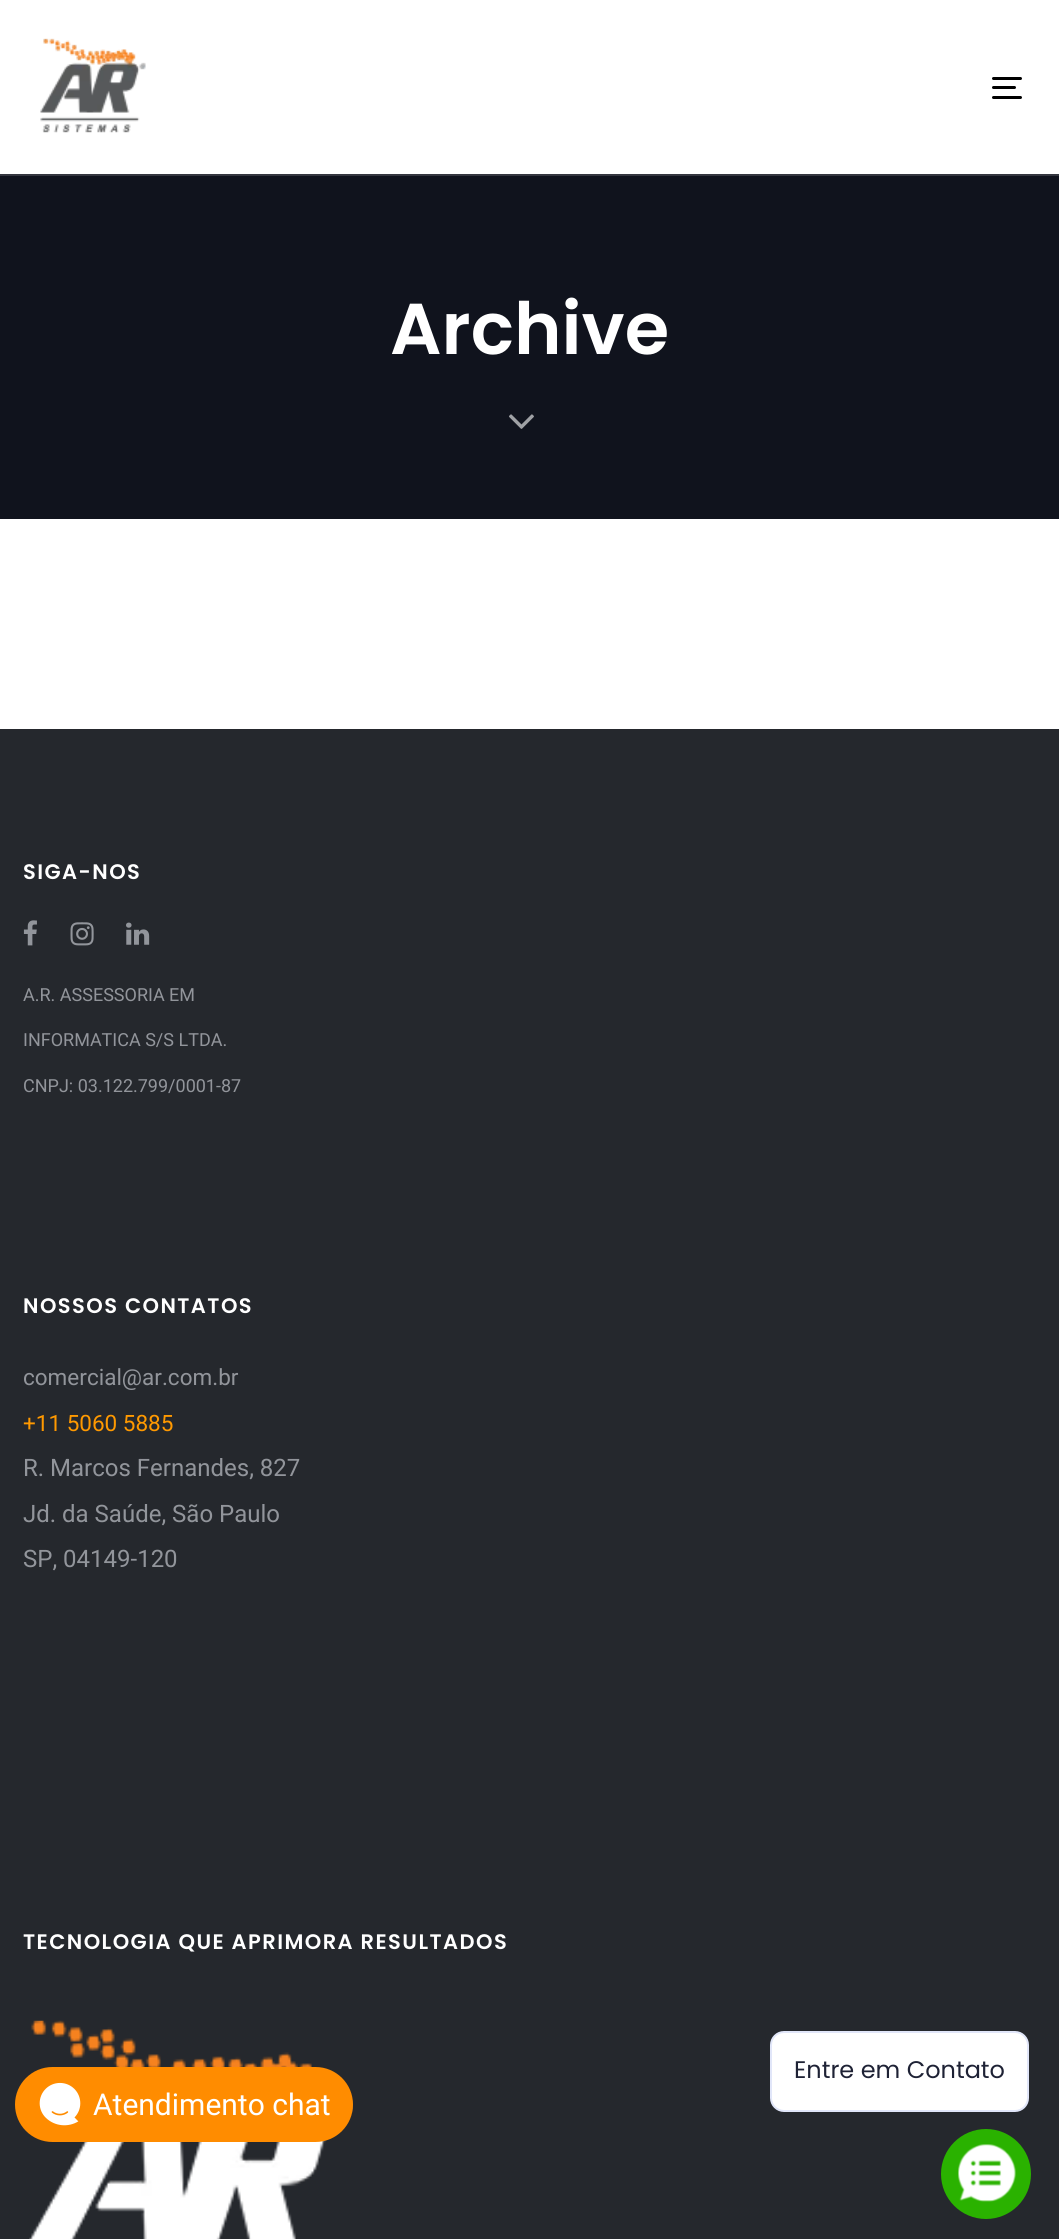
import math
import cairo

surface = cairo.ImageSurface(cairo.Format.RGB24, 1059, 2239)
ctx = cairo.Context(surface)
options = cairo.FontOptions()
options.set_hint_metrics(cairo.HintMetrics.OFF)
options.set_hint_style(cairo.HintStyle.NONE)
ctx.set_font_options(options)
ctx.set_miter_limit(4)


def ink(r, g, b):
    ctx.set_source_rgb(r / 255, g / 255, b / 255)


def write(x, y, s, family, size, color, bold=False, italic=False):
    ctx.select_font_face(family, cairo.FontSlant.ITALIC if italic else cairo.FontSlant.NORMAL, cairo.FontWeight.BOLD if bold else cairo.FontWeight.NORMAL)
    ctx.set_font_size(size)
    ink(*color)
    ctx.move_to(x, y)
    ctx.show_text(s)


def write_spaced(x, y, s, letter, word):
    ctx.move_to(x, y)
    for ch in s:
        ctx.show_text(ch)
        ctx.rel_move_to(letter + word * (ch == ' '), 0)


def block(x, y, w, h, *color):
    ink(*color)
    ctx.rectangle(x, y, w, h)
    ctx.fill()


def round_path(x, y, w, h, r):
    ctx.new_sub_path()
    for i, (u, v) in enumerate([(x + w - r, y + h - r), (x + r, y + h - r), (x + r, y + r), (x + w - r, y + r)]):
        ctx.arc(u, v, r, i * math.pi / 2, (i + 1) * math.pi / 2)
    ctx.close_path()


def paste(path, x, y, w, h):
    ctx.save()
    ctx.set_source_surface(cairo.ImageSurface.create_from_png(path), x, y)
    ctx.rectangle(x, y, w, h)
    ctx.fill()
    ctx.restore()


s1 = dict(family="Poppins SemiBold", size=72, color=(255, 255, 255))
s2 = dict(family="Roboto", size=18, color=(146, 149, 155))
s3 = dict(family="Roboto", size=22.5, color=(146, 149, 155))
s4 = dict(family="Roboto", size=22.5, color=(255, 153, 0))
s5 = dict(family="Roboto", size=24, color=(146, 149, 155))
s6 = dict(family="Poppins", size=24, color=(30, 34, 53))
s7 = dict(family="Roboto", size=30, color=(255, 255, 255))

ink(255, 255, 255)
ctx.paint()
block(0, 176, 1059, 343, 16, 19, 29)
block(0, 174, 1059, 2, 52, 54, 63)
paste("pic1.png", 40, 38, 106, 95)
ink(0, 0, 0)
round_path(992, 77, 30, 3, 1.5)
ctx.fill()
round_path(992, 86, 24, 3, 1.5)
ctx.fill()
round_path(992, 96, 30, 3, 1.5)
ctx.fill()
write(390, 354, "Archive", **s1)
paste("pic2.png", 509, 414, 25, 15)
block(0, 729, 1059, 1510, 37, 40, 45)
ctx.set_font_size(21)
ink(255, 255, 255)
write_spaced(23, 879, "SIGA-NOS", 1.45, 0)
paste("pic3.png", 23, 920, 14, 26)
paste("pic4.png", 70, 922, 24, 24)
paste("pic5.png", 126, 922, 24, 23)
write(23, 1001, "A.R. ASSESSORIA EM", **s2)
write(23, 1046, "INFORMATICA S/S LTDA.", **s2)
write(23, 1092, "CNPJ: 03.122.799/0001-87", **s2)
ctx.select_font_face("Poppins SemiBold")
ctx.set_font_size(21)
ink(255, 255, 255)
write_spaced(23, 1313, "NOSSOS CONTATOS", 1.45, 0)
write(23, 1385, "comercial@ar.com.br", **s3)
write(23, 1431, "+11 5060 5885", **s4)
write(23, 1476, "R. Marcos Fernandes, 827", **s5)
write(23, 1522, "Jd. da Saúde, São Paulo", **s5)
write(23, 1567, "SP, 04149-120", **s5)
ctx.select_font_face("Poppins SemiBold")
ctx.set_font_size(21)
ink(255, 255, 255)
write_spaced(23, 1949, "TECNOLOGIA QUE APRIMORA RESULTADOS", 1.45, 0)
paste("pic6.png", 29, 2020, 324, 219)
round_path(771, 2032, 257, 79, 13)
ctx.fill_preserve()
ink(225, 230, 249)
ctx.stroke()
write(794, 2078, "Entre em Contato", **s6)
ink(42, 178, 0)
ctx.new_path()
ctx.arc(986, 2174, 45, 0, 2 * math.pi)
ctx.fill()
paste("pic7.png", 958, 2144, 58, 58)
ink(255, 140, 0)
round_path(15, 2067, 338, 75, 37.5)
ctx.fill()
paste("pic8.png", 39, 2082, 42, 44)
write(93, 2115, "Atendimento chat", **s7)
surface.write_to_png("screenshot.png")
